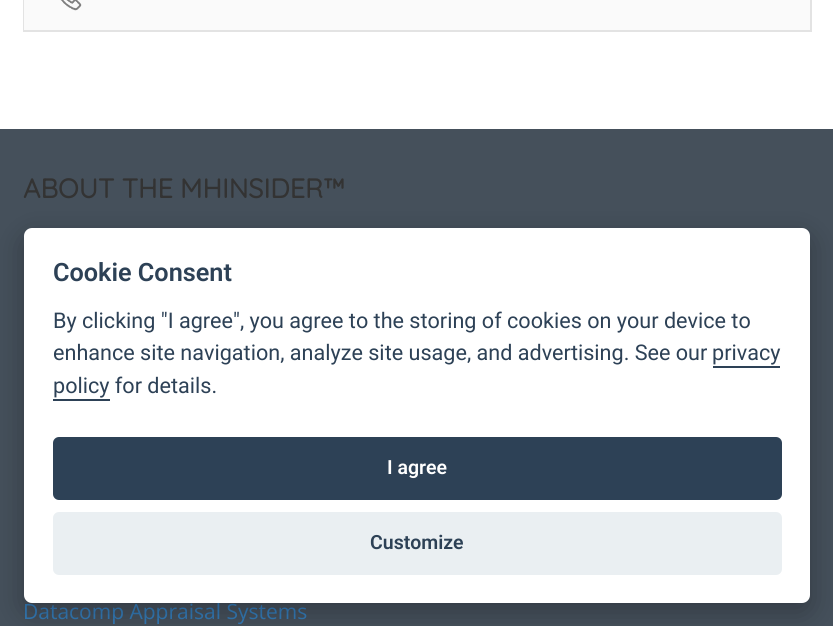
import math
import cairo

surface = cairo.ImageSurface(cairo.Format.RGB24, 833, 626)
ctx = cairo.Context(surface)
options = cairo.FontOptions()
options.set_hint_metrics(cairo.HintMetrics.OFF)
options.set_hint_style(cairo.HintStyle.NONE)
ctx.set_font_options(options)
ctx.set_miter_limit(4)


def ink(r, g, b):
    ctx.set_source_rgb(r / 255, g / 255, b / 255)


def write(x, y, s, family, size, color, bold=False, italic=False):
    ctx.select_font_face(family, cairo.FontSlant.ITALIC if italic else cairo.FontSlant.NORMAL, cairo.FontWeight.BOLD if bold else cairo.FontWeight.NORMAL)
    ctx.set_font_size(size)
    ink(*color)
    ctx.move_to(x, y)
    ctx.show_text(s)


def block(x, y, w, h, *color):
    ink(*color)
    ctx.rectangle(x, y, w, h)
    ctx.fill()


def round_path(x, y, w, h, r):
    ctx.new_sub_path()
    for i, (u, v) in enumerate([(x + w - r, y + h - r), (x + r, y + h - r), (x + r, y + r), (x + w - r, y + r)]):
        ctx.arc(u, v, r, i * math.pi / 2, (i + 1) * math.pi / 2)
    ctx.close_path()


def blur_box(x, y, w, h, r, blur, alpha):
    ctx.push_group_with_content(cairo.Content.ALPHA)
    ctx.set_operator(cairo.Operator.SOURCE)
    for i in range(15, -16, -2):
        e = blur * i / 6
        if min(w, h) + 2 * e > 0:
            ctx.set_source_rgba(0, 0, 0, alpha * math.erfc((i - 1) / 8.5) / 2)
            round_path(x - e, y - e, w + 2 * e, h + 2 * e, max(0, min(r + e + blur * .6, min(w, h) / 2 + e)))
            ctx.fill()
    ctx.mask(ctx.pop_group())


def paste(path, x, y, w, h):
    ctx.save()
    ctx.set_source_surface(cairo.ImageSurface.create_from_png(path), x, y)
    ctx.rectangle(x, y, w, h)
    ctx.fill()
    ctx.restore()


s1 = dict(family="Quicksand", size=27, color=(51, 51, 51), bold=True)
s2 = dict(family="Open Sans", size=21, color=(51, 122, 183))
s3 = dict(family="Roboto SemiBold", size=25.25, color=(45, 65, 86))
s4 = dict(family="Roboto", size=21.6, color=(45, 65, 86))
s5 = dict(family="Roboto SemiBold", size=19.5, color=(255, 255, 255))
s6 = dict(family="Roboto SemiBold", size=19.5, color=(45, 65, 86))

ink(255, 255, 255)
ctx.paint()
block(810, 0, 2, 32, 227, 227, 227)
block(23, 30, 789, 2, 227, 227, 227)
block(23, 0, 2, 32, 227, 227, 227)
block(24, 0, 786, 30, 250, 250, 250)
paste("pic1.png", 60, 0, 22, 11)
block(0, 129, 833, 497, 69, 80, 91)
write(23, 198, "ABOUT THE MHINSIDER™", **s1)
write(23, 619, "Datacomp Appraisal Systems", **s2)
ink(2, 2, 3)
blur_box(24, 237, 786, 375, 8, 14, 0.28)
ink(255, 255, 255)
round_path(24, 228, 786, 375, 8)
ctx.fill()
write(53, 281, "Cookie Consent", **s3)
write(53, 328, "By clicking \"I agree\", you agree to the storing of cookies on your device to", **s4)
write(53, 360, "enhance site navigation, analyze site usage, and advertising. See our", **s4)
write(712, 360, "privacy", **s4)
block(713, 366, 67, 2, 45, 65, 86)
write(53, 393, "policy for details.", **s4)
block(53, 399, 57, 2, 45, 65, 86)
round_path(53, 437, 729, 63, 6)
ctx.fill()
write(387, 474, "I agree", **s5)
ink(234, 239, 242)
round_path(53, 512, 729, 63, 6)
ctx.fill()
write(370, 549, "Customize", **s6)
surface.write_to_png("screenshot.png")
